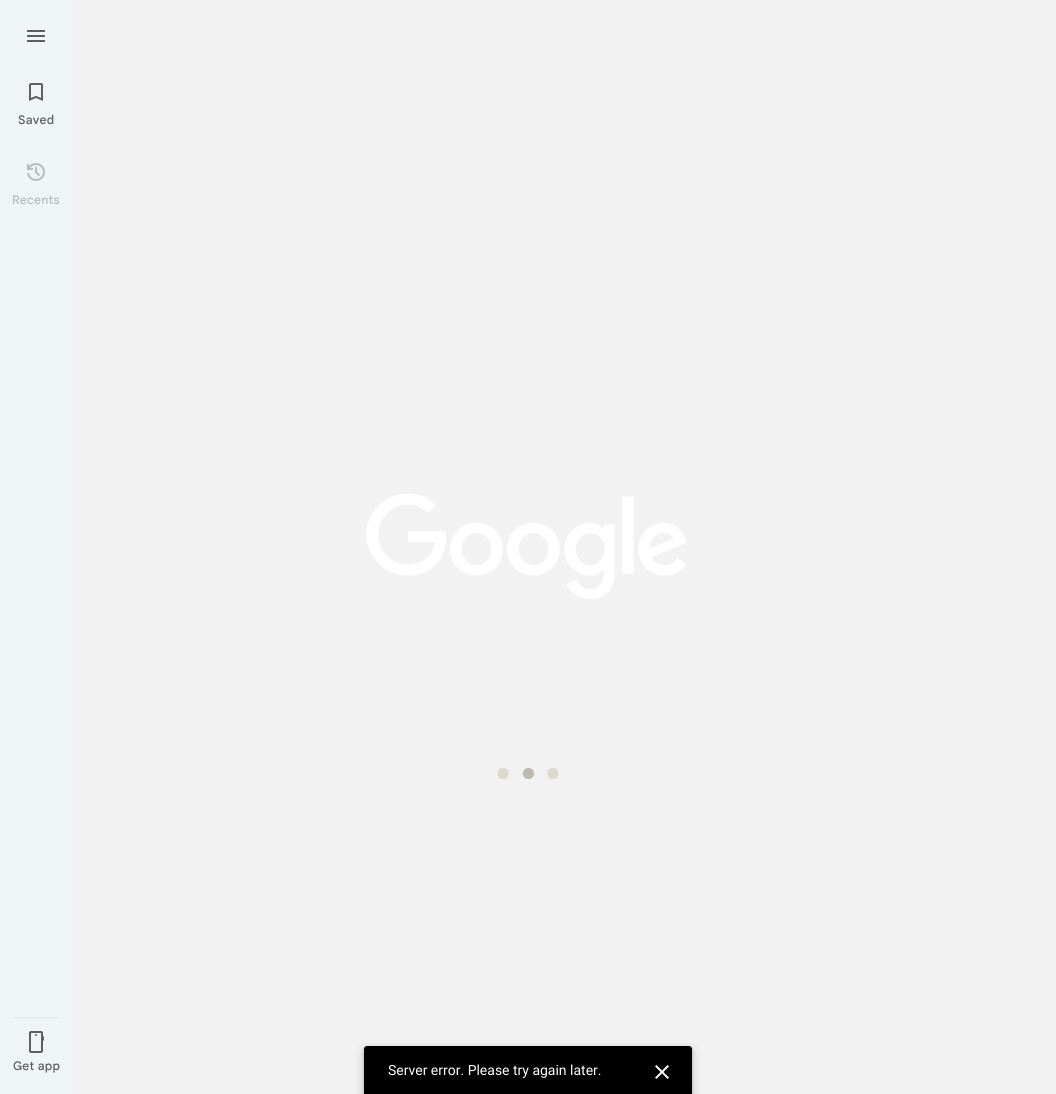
import math
import cairo

surface = cairo.ImageSurface(cairo.Format.RGB24, 1056, 1094)
ctx = cairo.Context(surface)
options = cairo.FontOptions()
options.set_hint_metrics(cairo.HintMetrics.OFF)
options.set_hint_style(cairo.HintStyle.NONE)
ctx.set_font_options(options)
ctx.set_miter_limit(4)


def ink(r, g, b):
    ctx.set_source_rgb(r / 255, g / 255, b / 255)


def write(x, y, s, family, size, color, bold=False, italic=False):
    ctx.select_font_face(family, cairo.FontSlant.ITALIC if italic else cairo.FontSlant.NORMAL, cairo.FontWeight.BOLD if bold else cairo.FontWeight.NORMAL)
    ctx.set_font_size(size)
    ink(*color)
    ctx.move_to(x, y)
    ctx.show_text(s)


def write_spaced(x, y, s, letter, word):
    ctx.move_to(x, y)
    for ch in s:
        ctx.show_text(ch)
        ctx.rel_move_to(letter + word * (ch == ' '), 0)


def block(x, y, w, h, *color):
    ink(*color)
    ctx.rectangle(x, y, w, h)
    ctx.fill()


def round_path(x, y, w, h, r):
    ctx.new_sub_path()
    for i, (u, v) in enumerate([(x + w - r, y + h - r), (x + r, y + h - r), (x + r, y + r), (x + w - r, y + r)]):
        ctx.arc(u, v, r, i * math.pi / 2, (i + 1) * math.pi / 2)
    ctx.close_path()


def blur_box(x, y, w, h, r, blur, alpha):
    ctx.push_group_with_content(cairo.Content.ALPHA)
    ctx.set_operator(cairo.Operator.SOURCE)
    for i in range(15, -16, -2):
        e = blur * i / 6
        if min(w, h) + 2 * e > 0:
            ctx.set_source_rgba(0, 0, 0, alpha * math.erfc((i - 1) / 8.5) / 2)
            round_path(x - e, y - e, w + 2 * e, h + 2 * e, max(0, min(r + e + blur * .6, min(w, h) / 2 + e)))
            ctx.fill()
    ctx.mask(ctx.pop_group())


def paste(path, x, y, w, h):
    ctx.save()
    ctx.set_source_surface(cairo.ImageSurface.create_from_png(path), x, y)
    ctx.rectangle(x, y, w, h)
    ctx.fill()
    ctx.restore()


s1 = dict(family="Roboto", size=14, color=(255, 255, 255))

ink(242, 242, 242)
ctx.paint()
block(0, 0, 72, 1094, 239, 245, 246)
paste("pic1.png", 27, 30, 18, 12)
paste("pic2.png", 29, 83, 14, 18)
ctx.select_font_face("Google Sans Medium")
ctx.set_font_size(12)
ink(94, 94, 94)
write_spaced(18, 124, "Saved", 0.25, 0)
paste("pic3.png", 27, 163, 18, 18)
ink(184, 188, 188)
write_spaced(12, 204, "Recents", 0.25, 0)
block(14, 1017, 44, 1, 227, 227, 227)
paste("pic4.png", 29, 1031, 15, 22)
ink(94, 94, 94)
write_spaced(13, 1070, "Get app", 0.25, 0)
paste("pic5.png", 366, 493, 321, 106)
paste("pic6.png", 497, 768, 62, 11)
ink(60, 64, 67)
blur_box(361, 1047, 334, 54, 6, 4, 0.15)
blur_box(364, 1047, 328, 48, 3, 1.5, 0.3)
ink(0, 0, 0)
ctx.new_path()
ctx.move_to(367, 1046)
ctx.line_to(689, 1046)
ctx.curve_to(690.5, 1046, 692, 1047.5, 692, 1049)
ctx.line_to(692, 1094)
ctx.line_to(364, 1094)
ctx.line_to(364, 1049)
ctx.curve_to(364, 1047.5, 365.5, 1046, 367, 1046)
ctx.close_path()
ctx.fill()
write(388, 1075, "Server error. Please try again later.", **s1)
paste("pic7.png", 655, 1065, 14, 14)
surface.write_to_png("screenshot.png")
